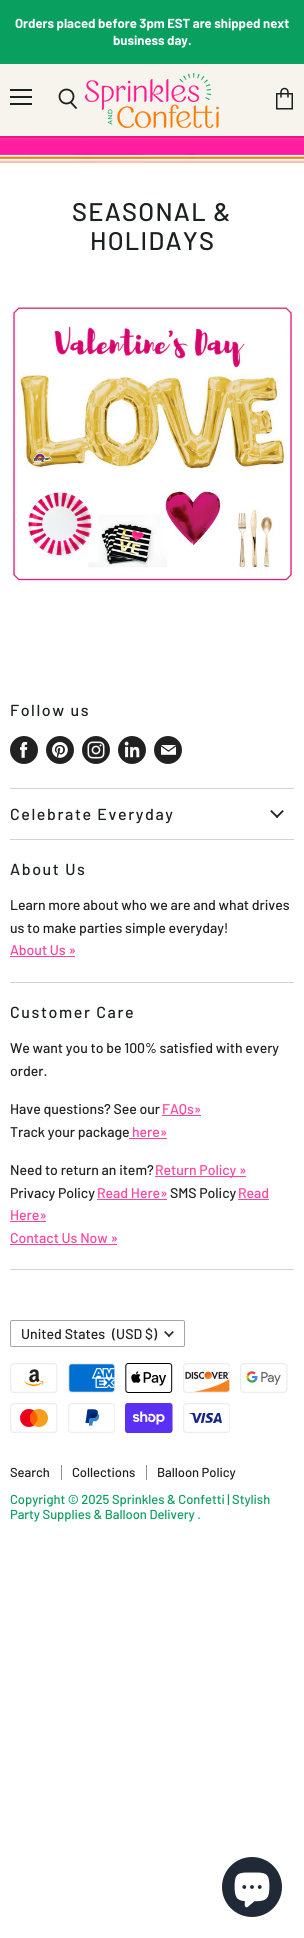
import math
import cairo

surface = cairo.ImageSurface(cairo.Format.RGB24, 304, 1938)
ctx = cairo.Context(surface)
options = cairo.FontOptions()
options.set_hint_metrics(cairo.HintMetrics.OFF)
options.set_hint_style(cairo.HintStyle.NONE)
ctx.set_font_options(options)
ctx.set_miter_limit(4)


def ink(r, g, b):
    ctx.set_source_rgb(r / 255, g / 255, b / 255)


def write(x, y, s, family, size, color, bold=False, italic=False):
    ctx.select_font_face(family, cairo.FontSlant.ITALIC if italic else cairo.FontSlant.NORMAL, cairo.FontWeight.BOLD if bold else cairo.FontWeight.NORMAL)
    ctx.set_font_size(size)
    ink(*color)
    ctx.move_to(x, y)
    ctx.show_text(s)


def write_spaced(x, y, s, letter, word):
    ctx.move_to(x, y)
    for ch in s:
        ctx.show_text(ch)
        ctx.rel_move_to(letter + word * (ch == ' '), 0)


def block(x, y, w, h, *color):
    ink(*color)
    ctx.rectangle(x, y, w, h)
    ctx.fill()


def round_path(x, y, w, h, r):
    ctx.new_sub_path()
    for i, (u, v) in enumerate([(x + w - r, y + h - r), (x + r, y + h - r), (x + r, y + r), (x + w - r, y + r)]):
        ctx.arc(u, v, r, i * math.pi / 2, (i + 1) * math.pi / 2)
    ctx.close_path()


def blur_box(x, y, w, h, r, blur, alpha):
    ctx.push_group_with_content(cairo.Content.ALPHA)
    ctx.set_operator(cairo.Operator.SOURCE)
    for i in range(15, -16, -2):
        e = blur * i / 6
        if min(w, h) + 2 * e > 0:
            ctx.set_source_rgba(0, 0, 0, alpha * math.erfc((i - 1) / 8.5) / 2)
            round_path(x - e, y - e, w + 2 * e, h + 2 * e, max(0, min(r + e + blur * .6, min(w, h) / 2 + e)))
            ctx.fill()
    ctx.mask(ctx.pop_group())


def paste(path, x, y, w, h):
    ctx.save()
    ctx.set_source_surface(cairo.ImageSurface.create_from_png(path), x, y)
    ctx.rectangle(x, y, w, h)
    ctx.fill()
    ctx.restore()


s1 = dict(family="Barlow Medium", size=14.1, color=(33, 33, 33))

ink(255, 255, 255)
ctx.paint()
block(0, 0, 304, 64, 8, 159, 95)
ctx.select_font_face("Barlow", cairo.FontSlant.NORMAL, cairo.FontWeight.BOLD)
ctx.set_font_size(13.1)
ink(255, 255, 255)
write_spaced(15, 28, "Orders placed before 3pm EST are shipped next", -0.05, 0)
write_spaced(113, 45, "business day.", -0.05, 0)
paste("pic3.png", 0, 138, 304, 25)
ink(186, 192, 190)
blur_box(0, 65, 304, 74, 0, 2, 0.25)
block(0, 64, 304, 72, 247, 244, 237)
block(0, 136, 304, 2, 239, 21, 135)
paste("pic1.png", 85, 73, 134, 55)
block(10, 89, 22, 2, 27, 33, 32)
block(10, 96, 22, 2, 27, 33, 32)
block(10, 103, 22, 2, 27, 33, 32)
ctx.new_path()
ctx.move_to(76.5, 108.5)
ctx.line_to(70.5, 102)
ctx.set_line_width(1.8)
ctx.stroke()
ctx.arc(66.5, 96.5, 7, 0, 2 * math.pi)
ctx.stroke()
paste("pic2.png", 276, 87, 17, 23)
ctx.select_font_face("Barlow Medium")
ctx.set_font_size(25.5)
write_spaced(72, 221, "SEASONAL &", 1.25, 0)
write_spaced(90, 250, "HOLIDAYS", 1.25, 0)
paste("pic4.png", 10, 306, 284, 279)
block(10, 788, 284, 1, 211, 211, 211)
ctx.set_font_size(16)
ink(27, 33, 32)
write_spaced(10, 716, "Follow us", 1.6, 0)
ink(33, 33, 33)
ctx.new_path()
ctx.arc(24, 750, 14, 0, 2 * math.pi)
ctx.fill()
paste("pic5.png", 20, 742, 8, 16)
ctx.arc(60, 750, 14, 0, 2 * math.pi)
ctx.fill()
paste("pic6.png", 52, 742, 16, 16)
ctx.arc(96, 750, 14, 0, 2 * math.pi)
ctx.fill()
paste("pic7.png", 87, 741, 18, 18)
ctx.arc(132, 750, 14, 0, 2 * math.pi)
ctx.fill()
paste("pic8.png", 124, 741, 16, 17)
ctx.arc(168, 750, 14, 0, 2 * math.pi)
ctx.fill()
paste("pic9.png", 161, 745, 15, 10)
block(10, 839, 284, 1, 211, 211, 211)
ink(27, 33, 32)
write_spaced(10, 820, "Celebrate Everyday", 1.6, 0)
paste("pic10.png", 270, 810, 14, 8)
block(10, 982, 284, 1, 211, 211, 211)
ink(27, 33, 32)
write_spaced(10, 875, "About Us", 1.6, 0)
ctx.set_font_size(14.1)
ink(33, 33, 33)
write_spaced(10, 910, "Learn more about who we are and what drives", -0.05, 0)
write_spaced(10, 933, "us to make parties simple everyday!", -0.05, 0)
ink(255, 67, 158)
write_spaced(10, 955, "About Us »", -0.05, 0)
block(10, 956, 65, 1, 255, 67, 158)
block(10, 1269, 284, 1, 211, 211, 211)
ctx.set_font_size(16)
ink(27, 33, 32)
write_spaced(10, 1018, "Customer Care", 1.6, 0)
ctx.set_font_size(14.1)
ink(33, 33, 33)
write_spaced(10, 1053, "We want you to be 100% satisfied with every", -0.05, 0)
write_spaced(10, 1076, "order.", -0.05, 0)
write_spaced(10, 1114, "Have questions? See our", -0.05, 0)
block(162, 1115, 39, 1, 255, 67, 158)
write_spaced(162, 1114, "FAQs»", -0.05, 0)
ink(33, 33, 33)
write_spaced(10, 1137, "Track your package", -0.05, 0)
ink(255, 67, 158)
write_spaced(132, 1137, "here»", -0.05, 0)
block(129, 1138, 38, 1, 255, 67, 158)
ink(33, 33, 33)
write_spaced(10, 1175, "Need to return an item?", -0.05, 0)
block(155, 1176, 91, 1, 255, 67, 158)
write_spaced(155, 1175, "Return Policy »", -0.05, 0)
ink(33, 33, 33)
write_spaced(10, 1198, "Privacy Policy", -0.05, 0)
ink(255, 67, 158)
write_spaced(97, 1198, "Read Here»", -0.05, 0)
block(97, 1199, 70, 1, 255, 67, 158)
ink(33, 33, 33)
write_spaced(170, 1198, "SMS Policy", -0.05, 0)
ink(255, 67, 158)
write_spaced(238, 1198, "Read", -0.05, 0)
block(238, 1199, 31, 1, 255, 67, 158)
write_spaced(10, 1220, "Here»", -0.05, 0)
block(10, 1221, 36, 1, 255, 67, 158)
write_spaced(10, 1243, "Contact Us Now »", -0.05, 0)
block(10, 1244, 107, 1, 255, 67, 158)
round_path(10.5, 1320.5, 174, 26, 1.5)
ink(166, 166, 166)
ctx.set_line_width(1)
ctx.stroke()
write(21, 1339, "United States", **s1)
write(112, 1339, "(USD $)", **s1)
paste("pic11.png", 164, 1331, 10, 6)
paste("pic12.png", 10, 1363, 48, 30)
paste("pic13.png", 68, 1363, 47, 30)
paste("pic14.png", 125, 1363, 48, 30)
paste("pic15.png", 183, 1363, 47, 30)
paste("pic16.png", 240, 1363, 48, 30)
paste("pic17.png", 10, 1403, 48, 30)
paste("pic18.png", 68, 1403, 47, 30)
paste("pic19.png", 125, 1403, 48, 30)
paste("pic20.png", 183, 1403, 47, 30)
block(61, 1465, 1, 15, 144, 144, 144)
ctx.set_font_size(13)
ink(27, 33, 32)
write_spaced(10, 1477, "Search", -0.05, 0)
block(146, 1465, 1, 15, 144, 144, 144)
ink(27, 33, 32)
write_spaced(72, 1477, "Collections", -0.05, 0)
write_spaced(157, 1477, "Balloon Policy", -0.05, 0)
ink(8, 159, 95)
write_spaced(10, 1504, "Copyright © 2025 Sprinkles & Confetti | Stylish", -0.05, 0)
write_spaced(10, 1519, "Party Supplies & Balloon Delivery .", -0.05, 0)
ink(32, 42, 54)
ctx.new_path()
ctx.arc(252, 1887, 30, 0, 2 * math.pi)
ctx.fill()
paste("pic21.png", 234, 1872, 36, 36)
surface.write_to_png("screenshot.png")
